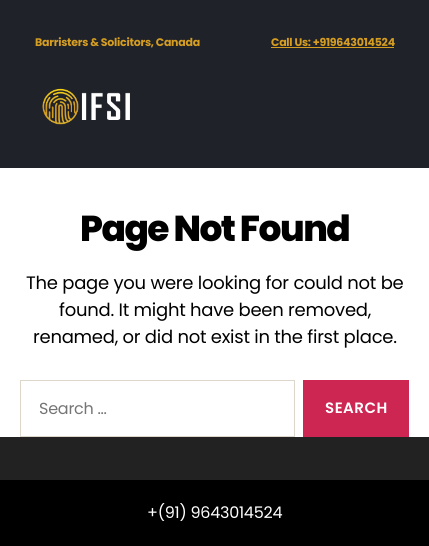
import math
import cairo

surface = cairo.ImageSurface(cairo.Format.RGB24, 429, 546)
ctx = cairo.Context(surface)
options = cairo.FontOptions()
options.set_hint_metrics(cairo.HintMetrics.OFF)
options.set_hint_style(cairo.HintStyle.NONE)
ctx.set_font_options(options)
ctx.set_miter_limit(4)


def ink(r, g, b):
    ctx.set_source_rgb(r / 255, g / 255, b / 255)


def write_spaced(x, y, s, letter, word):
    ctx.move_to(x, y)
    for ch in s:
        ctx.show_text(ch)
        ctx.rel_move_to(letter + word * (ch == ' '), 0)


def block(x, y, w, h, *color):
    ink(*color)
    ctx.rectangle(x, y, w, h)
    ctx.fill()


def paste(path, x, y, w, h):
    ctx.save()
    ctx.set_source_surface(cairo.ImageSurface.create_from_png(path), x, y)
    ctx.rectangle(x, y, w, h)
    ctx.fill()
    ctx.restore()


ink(255, 255, 255)
ctx.paint()
block(0, 0, 429, 168, 32, 34, 42)
ctx.select_font_face("Poppins", cairo.FontSlant.NORMAL, cairo.FontWeight.BOLD)
ctx.set_font_size(11)
ink(213, 158, 33)
write_spaced(35, 46, "Barristers & Solicitors, Canada", -0.25, 0)
write_spaced(271, 46, "Call Us: +919643014524", -0.25, 0)
block(271, 47, 123, 1, 213, 158, 33)
paste("pic1.png", 42, 88, 88, 37)
ctx.select_font_face("Poppins ExtraBold")
ctx.set_font_size(36)
ink(0, 0, 0)
write_spaced(80, 241, "Page Not Found", -1.5, 0)
ctx.select_font_face("Poppins")
ctx.set_font_size(18)
write_spaced(26, 289, "The page you were looking for could not be", -0.25, 0)
write_spaced(59, 316, "found. It might have been removed,", -0.25, 0)
write_spaced(33, 343, "renamed, or did not exist in the first place.", -0.25, 0)
ctx.rectangle(20.5, 380.5, 274, 56)
ink(220, 215, 202)
ctx.set_line_width(1)
ctx.stroke()
ctx.set_font_size(16)
ink(117, 117, 117)
write_spaced(39, 414, "Search …", -0.25, 0)
block(303, 380, 106, 57, 205, 38, 83)
ctx.select_font_face("Poppins SemiBold")
ctx.set_font_size(15)
ink(255, 255, 255)
write_spaced(325, 413, "SEARCH", 0.5, 0)
block(0, 437, 429, 43, 34, 34, 34)
block(0, 480, 429, 66, 0, 0, 0)
ctx.select_font_face("Poppins")
ctx.set_font_size(16)
ink(255, 255, 255)
write_spaced(147, 518, "+(91) 9643014524", -0.25, 0)
surface.write_to_png("screenshot.png")
